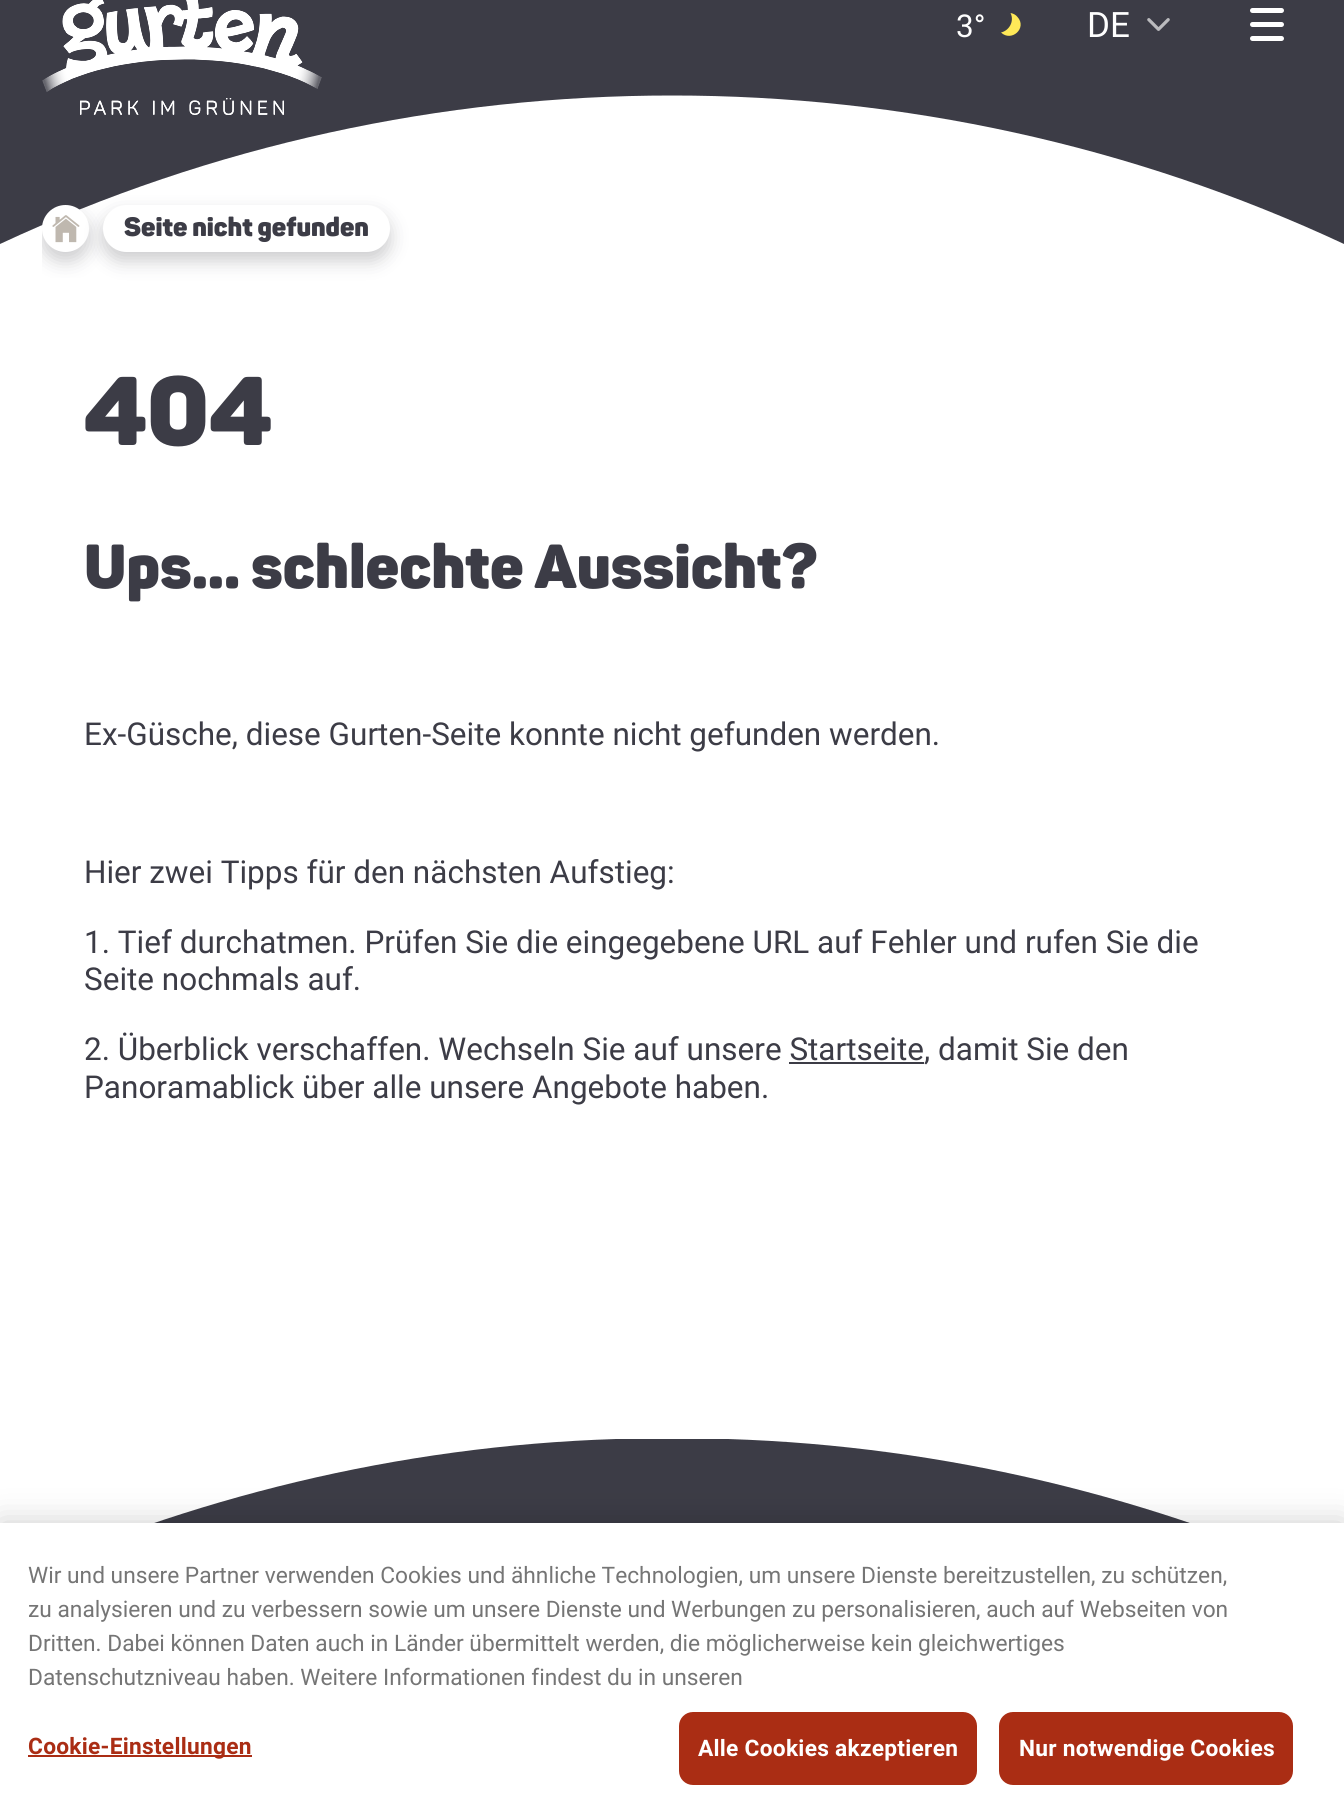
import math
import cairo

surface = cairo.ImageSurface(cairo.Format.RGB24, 1344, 1809)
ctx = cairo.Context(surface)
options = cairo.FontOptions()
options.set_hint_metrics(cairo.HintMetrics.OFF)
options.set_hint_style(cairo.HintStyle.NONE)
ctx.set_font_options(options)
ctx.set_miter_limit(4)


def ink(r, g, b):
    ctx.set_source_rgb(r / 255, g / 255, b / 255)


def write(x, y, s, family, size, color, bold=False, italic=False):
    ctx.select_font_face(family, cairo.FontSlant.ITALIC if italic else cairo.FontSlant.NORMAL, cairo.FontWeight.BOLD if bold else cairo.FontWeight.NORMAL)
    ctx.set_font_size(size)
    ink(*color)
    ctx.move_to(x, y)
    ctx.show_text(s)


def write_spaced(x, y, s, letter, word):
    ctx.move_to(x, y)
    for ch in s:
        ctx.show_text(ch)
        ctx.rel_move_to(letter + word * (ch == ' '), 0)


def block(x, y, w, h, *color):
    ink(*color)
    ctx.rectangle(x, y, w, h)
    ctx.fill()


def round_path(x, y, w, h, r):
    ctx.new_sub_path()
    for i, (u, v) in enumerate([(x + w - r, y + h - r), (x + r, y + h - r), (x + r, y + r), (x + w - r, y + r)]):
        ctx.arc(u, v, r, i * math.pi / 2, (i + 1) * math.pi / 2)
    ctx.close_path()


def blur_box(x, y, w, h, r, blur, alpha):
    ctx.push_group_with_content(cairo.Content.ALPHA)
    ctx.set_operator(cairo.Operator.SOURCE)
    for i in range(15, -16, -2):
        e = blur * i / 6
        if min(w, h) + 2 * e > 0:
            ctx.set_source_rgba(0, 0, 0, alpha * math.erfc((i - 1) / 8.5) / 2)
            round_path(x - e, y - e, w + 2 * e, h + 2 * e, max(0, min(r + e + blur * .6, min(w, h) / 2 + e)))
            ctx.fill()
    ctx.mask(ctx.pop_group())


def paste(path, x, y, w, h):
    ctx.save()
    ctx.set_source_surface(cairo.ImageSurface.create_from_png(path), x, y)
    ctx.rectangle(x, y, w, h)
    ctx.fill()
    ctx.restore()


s1 = dict(family="Roboto", size=31.5, color=(255, 255, 255))
s2 = dict(family="Roboto", size=35, color=(255, 255, 255))
s3 = dict(family="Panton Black", size=26.25, color=(60, 60, 70))
s4 = dict(family="Panton Black", size=96, color=(60, 60, 70))
s5 = dict(family="Panton Black", size=61.25, color=(60, 60, 70))
s6 = dict(family="Roboto", size=31.5, color=(60, 60, 70))
s7 = dict(family="Roboto", size=22.75, color=(117, 117, 117))

ink(255, 255, 255)
ctx.paint()
block(0, 0, 1344, 93, 60, 60, 70)
ctx.new_path()
ctx.move_to(1344, 244)
ctx.curve_to(920, 46, 424, 46, 0, 244)
ctx.line_to(0, 93)
ctx.line_to(1344, 93)
ctx.close_path()
ctx.fill()
paste("pic1.png", 42, 0, 280, 115)
paste("pic2.png", 42, 0, 280, 115)
write(956, 37, "3°", **s1)
ink(255, 233, 88)
ctx.new_path()
ctx.move_to(1010.5, 13)
ctx.curve_to(1014.5, 21, 1009.5, 30.5, 1001, 32.5)
ctx.curve_to(1011.5, 42.5, 1027.5, 28, 1017.5, 17)
ctx.curve_to(1016, 15, 1013.5, 13.5, 1010.5, 13)
ctx.close_path()
ctx.fill()
write(1087, 37, "DE", **s2)
paste("pic3.png", 1147, 18, 23, 13)
round_path(1250, 8, 34, 5, 2.5)
ctx.fill()
round_path(1250, 22, 34, 5, 2.5)
ctx.fill()
round_path(1250, 36, 34, 5, 2.5)
ctx.fill()
ctx.save()
ctx.rectangle(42, 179, 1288, 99)
ctx.clip()
ink(60, 60, 70)
blur_box(42, 214, 47, 47, 23.5, 9, 0.26)
ctx.restore()
ctx.arc(65.5, 228.5, 23.5, 0, 2 * math.pi)
ctx.fill()
paste("pic4.png", 52, 215, 28, 28)
ink(60, 60, 70)
blur_box(103, 214, 287, 47, 23.5, 9, 0.26)
ink(255, 255, 255)
round_path(103, 205, 287, 47, 23.5)
ctx.fill()
write(124, 236, "Seite nicht gefunden", **s3)
write(84, 445, "404", **s4)
write(84, 588, "Ups... schlechte Aussicht?", **s5)
write(84, 745, "Ex-Güsche, diese Gurten-Seite konnte nicht gefunden werden.", **s6)
write(84, 883, "Hier zwei Tipps für den nächsten Aufstieg:", **s6)
write(84, 953, "1. Tief durchatmen. Prüfen Sie die eingegebene URL auf Fehler und rufen Sie die", **s6)
write(84, 990, "Seite nochmals auf.", **s6)
write(84, 1060, "2. Überblick verschaffen. Wechseln Sie auf unsere Startseite, damit Sie den", **s6)
block(789, 1062, 135, 2, 60, 60, 70)
write(84, 1098, "Panoramablick über alle unsere Angebote haben.", **s6)
ctx.new_path()
ctx.move_to(0, 1584)
ctx.curve_to(189, 1498, 397, 1446, 616, 1439)
ctx.line_to(728, 1439)
ctx.curve_to(947, 1446, 1155, 1498, 1344, 1584)
ctx.line_to(1344, 1600)
ctx.line_to(0, 1600)
ctx.close_path()
ctx.fill()
ink(0, 0, 0)
blur_box(0, 1523, 1344, 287, 0, 16, 0.2)
block(0, 1523, 1344, 286, 255, 255, 255)
write(28, 1583, "Wir und unsere Partner verwenden Cookies und ähnliche Technologien, um unsere Dienste bereitzustellen, zu schützen,", **s7)
write(28, 1617, "zu analysieren und zu verbessern sowie um unsere Dienste und Werbungen zu personalisieren, auch auf Webseiten von", **s7)
write(28, 1651, "Dritten. Dabei können Daten auch in Länder übermittelt werden, die möglicherweise kein gleichwertiges", **s7)
write(28, 1685, "Datenschutzniveau haben. Weitere Informationen findest du in unseren", **s7)
block(28, 1755, 224, 2, 170, 45, 20)
ctx.select_font_face("Roboto", cairo.FontSlant.NORMAL, cairo.FontWeight.BOLD)
write_spaced(28, 1754, "Cookie-Einstellungen", 0.25, 0)
round_path(680, 1713, 296, 71, 13)
ctx.fill_preserve()
ctx.stroke()
ink(255, 255, 255)
write_spaced(698, 1756, "Alle Cookies akzeptieren", 0.25, 0)
ink(170, 45, 20)
round_path(1000, 1713, 292, 71, 13)
ctx.fill_preserve()
ctx.stroke()
ink(255, 255, 255)
write_spaced(1019, 1756, "Nur notwendige Cookies", 0.25, 0)
surface.write_to_png("screenshot.png")
